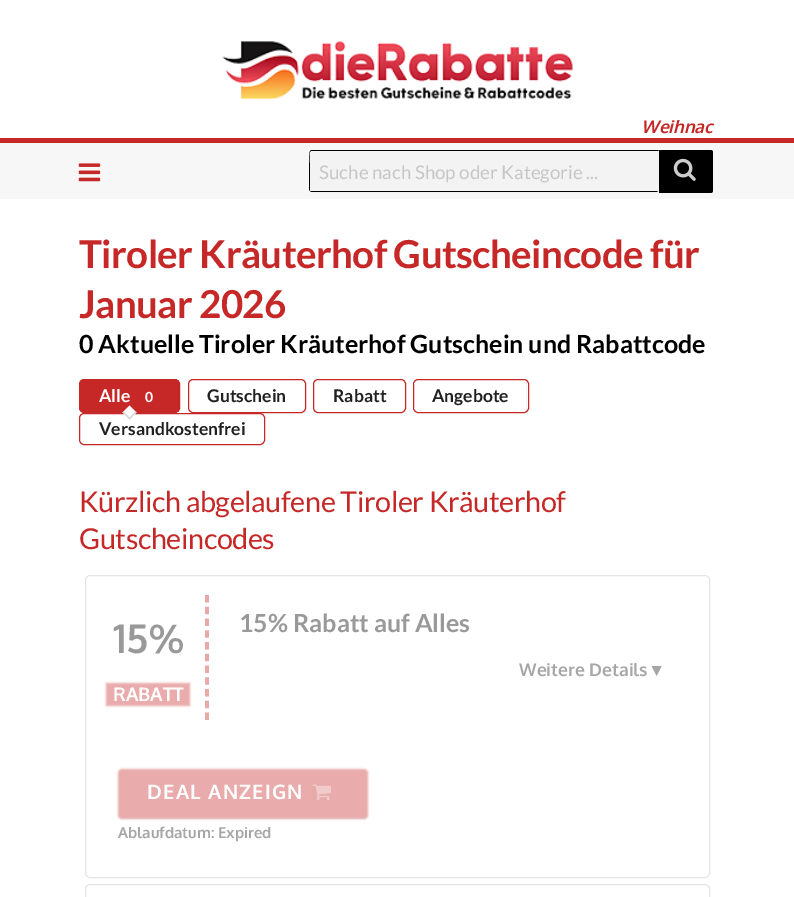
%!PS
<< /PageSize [794 897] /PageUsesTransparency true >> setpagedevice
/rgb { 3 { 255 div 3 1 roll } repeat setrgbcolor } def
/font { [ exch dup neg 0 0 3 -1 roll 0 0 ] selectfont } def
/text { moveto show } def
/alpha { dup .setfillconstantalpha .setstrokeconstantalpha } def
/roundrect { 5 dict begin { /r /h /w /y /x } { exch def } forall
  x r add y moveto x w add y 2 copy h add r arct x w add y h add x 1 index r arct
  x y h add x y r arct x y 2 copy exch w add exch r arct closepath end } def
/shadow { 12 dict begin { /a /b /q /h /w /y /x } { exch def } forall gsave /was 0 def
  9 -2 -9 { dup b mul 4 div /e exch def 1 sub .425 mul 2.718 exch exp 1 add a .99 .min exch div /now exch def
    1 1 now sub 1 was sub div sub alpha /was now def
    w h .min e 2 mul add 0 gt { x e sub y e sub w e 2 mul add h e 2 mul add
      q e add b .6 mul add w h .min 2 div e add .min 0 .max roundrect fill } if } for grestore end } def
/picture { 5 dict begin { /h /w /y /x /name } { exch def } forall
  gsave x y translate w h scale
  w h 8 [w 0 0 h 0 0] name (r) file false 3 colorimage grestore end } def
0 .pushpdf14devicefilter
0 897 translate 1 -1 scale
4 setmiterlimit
255 255 255 rgb
0 0 794 897 rectfill
198 40 40 rgb
0 138 794 5 rectfill
(img_01.rgb) 222 41 351 58 picture
247 247 247 rgb
0 143 794 56 rectfill
(img_02.rgb) 78 163 23 19 picture
243 243 243 rgb
311.5 150 moveto 347.5 0 rlineto 0 43 rlineto -347.5 0 rlineto -1.5 0 -2.5 -1 -2.5 -2.5 rcurveto 0 -38 rlineto 0 -1.5 1 -2.5 2.5 -2.5 rcurveto closepath fill
0 0 0 rgb
311 150 moveto -1 1 rlineto 0 1 rlineto 1 -1 rlineto 347 0 rlineto 1 -1 rlineto closepath fill
658 192 moveto -347 0 rlineto -1 -1 rlineto 347 0 rlineto closepath fill
310 151 moveto -1 1 -1 36 -1 39 rcurveto 1 1 rlineto 0 -1 0 -35 0 -39 rcurveto closepath fill
659 150 moveto 51.5 0 rlineto 1.5 0 2.5 1 2.5 2.5 rcurveto 0 38 rlineto 0 1.5 -1 2.5 -2.5 2.5 rcurveto -51.5 0 rlineto closepath fill
(img_03.rgb) 673 158 23 23 picture
198 40 40 rgb
79.5 379.5 100 33 4.5 roundrect gsave fill grestore
stroke
0.04 alpha
0 0 0 rgb
178 380 1 31 rectfill
1 alpha
198 40 40 rgb
79.5 413.5 185 31 4.5 roundrect stroke
255 255 255 rgb
129.5 405.5 moveto 7 7 rlineto -7 7 rlineto -7 -7 rlineto closepath fill
212 212 213 rgb
136 411.5 moveto 0.5 1 rlineto -7 7 rlineto -1 -1 rlineto closepath fill
123.5 411.5 moveto 7 7 rlineto -1 1 rlineto -7 -7 rlineto closepath fill
198 40 40 rgb
188.5 379.5 117 33 4.5 roundrect stroke
0.04 alpha
0 0 0 rgb
304 380 1 31 rectfill
1 alpha
198 40 40 rgb
313.5 379.5 92 33 4.5 roundrect stroke
0.04 alpha
0 0 0 rgb
404 380 1 31 rectfill
1 alpha
198 40 40 rgb
413.5 379.5 115 33 4.5 roundrect stroke
0.04 alpha
0 0 0 rgb
526 380 1 31 rectfill
1 alpha
229 229 229 rgb
85.5 575.5 624 302 4.5 roundrect stroke
232 169 169 rgb
3.8 setlinewidth
[7.5 4.25] 0 setdash
207 595 moveto 0 125 rlineto stroke
106 683 84 23 0 1 1 shadow
118 769 250 50 4 1 1 shadow
0.1 alpha
153 153 153 rgb
118 814 moveto 0 2 1 4 3 4 rcurveto 243 0 rlineto 2 0 4 -2 4 -4 rcurveto 0 1 rlineto 0 2 -2 4 -4 4 rcurveto -242 0 rlineto -2 0 -4 -2 -4 -4 rcurveto closepath fill
1 alpha
(img_04.rgb) 312 784 19 16 picture
229 229 229 rgb
1 setlinewidth
[] 0 setdash
85.5 884.5 624 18 4.5 roundrect stroke
/Oxygen-BoldItalic 17.5 font
198 40 40 rgb
(Weihnac) 641 133 text
/Lato-Regular 18.75 font
198 198 198 rgb
(Suche nach Shop oder Kategorie ...) 319 179 text
/Lato-Bold 38.5 font
198 40 40 rgb
79 268 moveto -0.6 0 (Tiroler Kräuterhof Gutscheincode für) ashow
79 318 moveto -0.6 0 (Januar 2026) ashow
/Lato-Bold 25 font
0 0 0 rgb
(0 Aktuelle Tiroler Kräuterhof Gutschein und Rabattcode) 79 353 text
/Lato-Bold 17.5 font
255 255 255 rgb
(Alle) 99 402 text
/Lato-Bold 14 font
(0) 145 402 text
/Lato-Bold 17.5 font
33 33 33 rgb
(Gutschein) 207 402 text
(Rabatt) 333 402 text
(Angebote) 432 402 text
(Versandkostenfrei) 99 435 text
/Lato-Regular 28.75 font
198 40 40 rgb
79 512 moveto -0.4 0 (Kürzlich abgelaufene Tiroler Kräuterhof) ashow
79 549 moveto -0.4 0 (Gutscheincodes) ashow
/Oxygen-Bold 40 font
153 153 153 rgb
(15%) 113 653 text
/Oxygen-Bold 18.75 font
255 255 255 rgb
(RABATT) 113 701 text
/Lato-Bold 25 font
153 153 153 rgb
(15% Rabatt auf Alles) 239 632 text
/Oxygen-Bold 17.5 font
166 166 166 rgb
(Weitere Details) 519 676 text
/LiberationSerif-Bold 17.5 font
(▼) 648 676 text
/Oxygen-Bold 20 font
255 255 255 rgb
147 799 moveto 1.25 0 (DEAL ANZEIGN) ashow
/Oxygen-Bold 15 font
166 166 166 rgb
(Ablaufdatum: Expired) 118 838 text
.poppdf14devicefilter showpage
